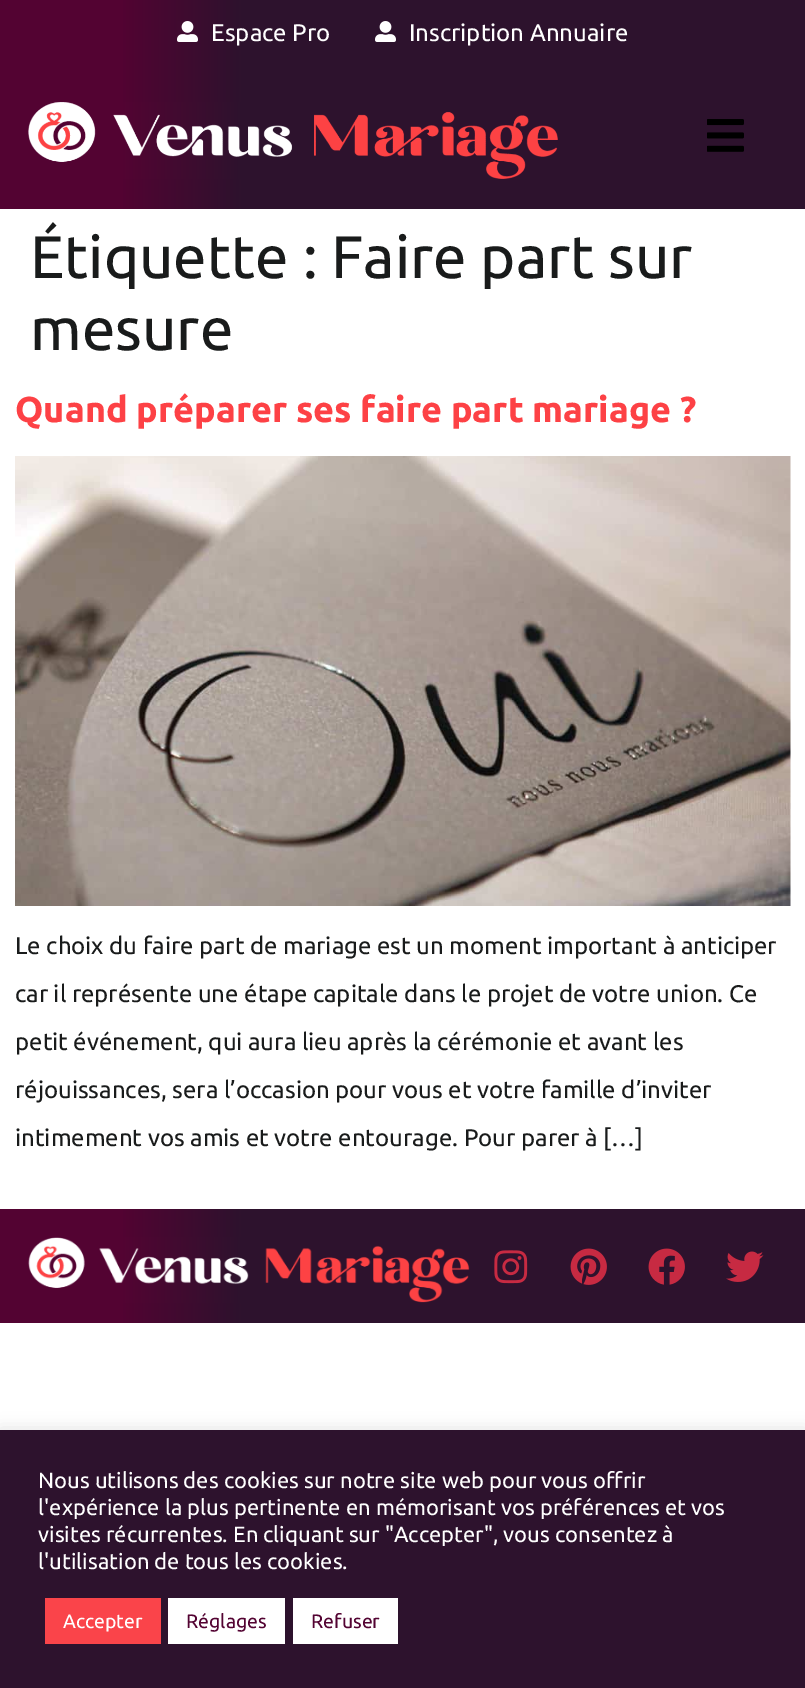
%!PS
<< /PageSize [805 1688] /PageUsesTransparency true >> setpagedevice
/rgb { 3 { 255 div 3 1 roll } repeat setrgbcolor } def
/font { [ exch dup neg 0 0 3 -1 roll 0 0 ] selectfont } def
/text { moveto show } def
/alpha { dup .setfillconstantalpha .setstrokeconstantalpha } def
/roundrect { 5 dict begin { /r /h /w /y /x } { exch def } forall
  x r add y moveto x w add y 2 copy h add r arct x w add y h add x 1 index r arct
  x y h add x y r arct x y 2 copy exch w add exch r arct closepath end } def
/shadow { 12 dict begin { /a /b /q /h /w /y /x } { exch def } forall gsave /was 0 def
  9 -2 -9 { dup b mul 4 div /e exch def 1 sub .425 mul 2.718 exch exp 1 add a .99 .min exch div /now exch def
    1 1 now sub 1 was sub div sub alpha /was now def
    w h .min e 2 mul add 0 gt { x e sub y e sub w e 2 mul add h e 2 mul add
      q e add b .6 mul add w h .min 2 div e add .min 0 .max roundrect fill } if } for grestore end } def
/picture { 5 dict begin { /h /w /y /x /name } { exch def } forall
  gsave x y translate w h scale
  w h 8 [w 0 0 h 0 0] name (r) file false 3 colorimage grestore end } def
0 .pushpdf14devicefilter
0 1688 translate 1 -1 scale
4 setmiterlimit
255 255 255 rgb
0 0 805 1688 rectfill
gsave 0 0 moveto 805 0 rlineto 0 209 rlineto -805 0 rlineto closepath clip newpath
<< /ShadingType 2 /ColorSpace /DeviceRGB /Coords [0 104 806 104] /Extend [true true] /Function << /FunctionType 3 /Domain [0 1] /Functions [<< /FunctionType 2 /Domain [0 1] /C0 [0.325 0.012 0.196] /C1 [0.325 0.012 0.196] /N 1 >> << /FunctionType 2 /Domain [0 1] /C0 [0.325 0.012 0.196] /C1 [0.176 0.071 0.176] /N 1 >> << /FunctionType 2 /Domain [0 1] /C0 [0.176 0.071 0.176] /C1 [0.176 0.071 0.176] /N 1 >>] /Bounds [0.15 0.3] /Encode [0 1 0 1 0 1] >> >> shfill grestore
(img_01.rgb) 177 21 21 21 picture
(img_02.rgb) 375 21 21 21 picture
(img_03.rgb) 28 102 530 77 picture
(img_04.rgb) 707 119 37 33 picture
(img_05.rgb) 15 456 776 450 picture
gsave 0 1209 moveto 805 0 rlineto 0 114 rlineto -805 0 rlineto closepath clip newpath
<< /ShadingType 2 /ColorSpace /DeviceRGB /Coords [0 1266 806 1266] /Extend [true true] /Function << /FunctionType 3 /Domain [0 1] /Functions [<< /FunctionType 2 /Domain [0 1] /C0 [0.325 0.012 0.196] /C1 [0.325 0.012 0.196] /N 1 >> << /FunctionType 2 /Domain [0 1] /C0 [0.325 0.012 0.196] /C1 [0.176 0.071 0.176] /N 1 >> << /FunctionType 2 /Domain [0 1] /C0 [0.176 0.071 0.176] /C1 [0.176 0.071 0.176] /N 1 >>] /Bounds [0.15 0.3] /Encode [0 1 0 1 0 1] >> >> shfill grestore
(img_06.rgb) 28 1237 442 66 picture
(img_07.rgb) 494 1250 34 34 picture
(img_08.rgb) 570 1248 37 37 picture
(img_09.rgb) 648 1248 37 37 picture
(img_10.rgb) 726 1251 38 31 picture
172 171 171 rgb
0 1428 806 260 0 7.5 0.3 shadow
45 18 45 rgb
0 1430 805 258 rectfill
250 68 74 rgb
45 1598 116 46 rectfill
255 255 255 rgb
168 1598 117 46 rectfill
293 1598 105 46 rectfill
/Ubuntu-Regular 24 font
(Espace Pro) 211 41 text
(Inscription Annuaire) 409 41 text
/Ubuntu-Regular 60 font
25 27 27 rgb
(Étiquette : Faire part sur) 30 278 text
(mesure) 30 350 text
/Ubuntu-Bold 36 font
253 65 69 rgb
(Quand préparer ses faire part mariage ?) 15 422 text
/Ubuntu-Regular 24 font
25 27 27 rgb
(Le choix du faire part de mariage est un moment important à anticiper) 15 954 text
(car il représente une étape capitale dans le projet de votre union. Ce) 15 1002 text
(petit événement, qui aura lieu après la cérémonie et avant les) 15 1050 text
(réjouissances, sera l’occasion pour vous et votre famille d’inviter) 15 1098 text
(intimement vos amis et votre entourage. Pour parer à […]) 15 1146 text
/Ubuntu-Regular 22 font
255 255 255 rgb
(Nous utilisons des cookies sur notre site web pour vous offrir) 38 1488 text
(l'expérience la plus pertinente en mémorisant vos préférences et vos) 38 1515 text
(visites récurrentes. En cliquant sur "Accepter", vous consentez à) 38 1542 text
(l'utilisation de tous les cookies.) 38 1569 text
/Ubuntu-Regular 19.5 font
(Accepter) 63 1628 text
83 3 50 rgb
(Réglages) 186 1628 text
(Refuser) 311 1628 text
.poppdf14devicefilter showpage
